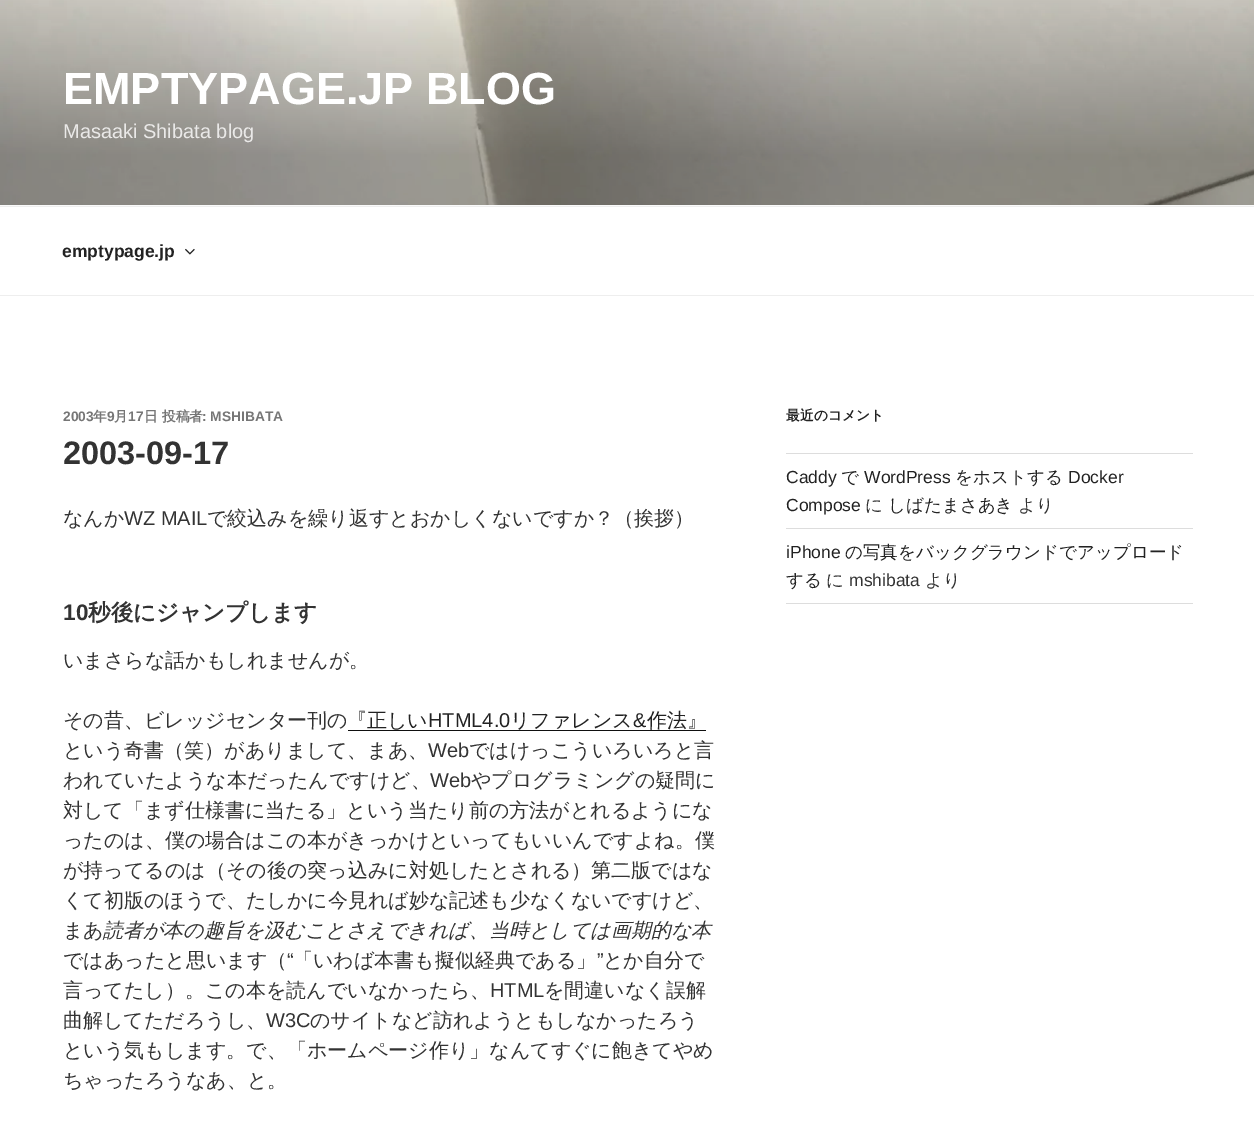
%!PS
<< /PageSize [1254 1127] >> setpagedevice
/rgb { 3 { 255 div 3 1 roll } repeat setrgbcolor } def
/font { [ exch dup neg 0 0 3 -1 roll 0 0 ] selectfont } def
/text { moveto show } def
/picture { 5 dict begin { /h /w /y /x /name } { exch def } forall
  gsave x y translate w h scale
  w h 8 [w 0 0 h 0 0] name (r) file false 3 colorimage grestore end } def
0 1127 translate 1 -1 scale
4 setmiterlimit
255 255 255 rgb
0 0 1254 1127 rectfill
250 250 250 rgb
0 205 1254 1 rectfill
(img_01.rgb) 0 0 1254 205 picture
238 238 238 rgb
0 206 1254 1 rectfill
0 295 1254 1 rectfill
(img_02.rgb) 185 248 10 7 picture
15 15 15 rgb
348 730 358 1 rectfill
221 221 221 rgb
786 453 407 1 rectfill
786 528 407 1 rectfill
786 603 407 1 rectfill
/LiberationSans-Bold 45 font
255 255 255 rgb
(EMPTYPAGE.JP BLOG) 63 104 text
/LiberationSans-Regular 20 font
234 233 232 rgb
(Masaaki Shibata blog) 63 138 text
/LiberationSans-Bold 17.5 font
34 34 34 rgb
(emptypage.jp) 62 257 text
/LiberationSans-Bold 13.75 font
118 118 118 rgb
(2003) 63 421 text
/WenQuanYiZenHei-Bold 13.75 font
(年) 93 421 text
/LiberationSans-Bold 13.75 font
(9) 107 421 text
/WenQuanYiZenHei-Bold 13.75 font
(月) 114 421 text
/LiberationSans-Bold 13.75 font
(17) 128 421 text
/WenQuanYiZenHei-Bold 13.75 font
(日 投稿者) 144 421 text
/LiberationSans-Bold 13.75 font
(: MSHIBATA) 202 421 text
/LiberationSans-Bold 32.5 font
51 51 51 rgb
(2003-09-17) 63 464 text
/WenQuanYiZenHei-Medium 20 font
(なんか) 63 525 text
/LiberationSans-Regular 20 font
(WZ MAIL) 124 525 text
/WenQuanYiZenHei-Medium 20 font
(で絞込みを繰り返すとおかしくないですか？（挨拶）) 207 525 text
/LiberationSans-Bold 22.5 font
(10) 63 620 text
/WenQuanYiZenHei-Bold 22.5 font
(秒後にジャンプします) 88 620 text
/WenQuanYiZenHei-Medium 20 font
(いまさらな話かもしれませんが。) 63 667 text
(その昔、ビレッジセンター刊の) 63 727 text
34 34 34 rgb
(『正しい) 347 727 text
/LiberationSans-Regular 20 font
(HTML4.0) 428 727 text
/WenQuanYiZenHei-Medium 20 font
(リファレンス) 510 727 text
/LiberationSans-Regular 20 font
(&) 633 727 text
/WenQuanYiZenHei-Medium 20 font
(作法』) 647 727 text
51 51 51 rgb
(という奇書（笑）がありまして、まあ、) 63 757 text
/LiberationSans-Regular 20 font
(Web) 428 757 text
/WenQuanYiZenHei-Medium 20 font
(ではけっこういろいろと言) 469 757 text
(われていたような本だったんですけど、) 63 787 text
/LiberationSans-Regular 20 font
(Web) 430 787 text
/WenQuanYiZenHei-Medium 20 font
(やプログラミングの疑問に) 471 787 text
(対して「まず仕様書に当たる」という当たり前の方法がとれるようにな) 63 817 text
(ったのは、僕の場合はこの本がきっかけといってもいいんですよね。僕) 63 847 text
(が持ってるのは（その後の突っ込みに対処したとされる）第二版ではな) 63 877 text
(くて初版のほうで、たしかに今見れば妙な記述も少なくないですけど、) 63 907 text
(まあ) 63 937 text
/WenQuanYiZenHei-MediumItalic 20 font
(読者が本の趣旨を汲むことさえできれば、当時としては画期的な本) 103 937 text
/WenQuanYiZenHei-Medium 20 font
(ではあったと思います（) 63 967 text
/LiberationSans-Regular 20 font
(“) 287 967 text
/WenQuanYiZenHei-Medium 20 font
(「いわば本書も擬似経典である」) 293 967 text
/LiberationSans-Regular 20 font
(”) 597 967 text
/WenQuanYiZenHei-Medium 20 font
(とか自分で) 603 967 text
(言ってたし）。この本を読んでいなかったら、) 63 997 text
/LiberationSans-Regular 20 font
(HTML) 490 997 text
/WenQuanYiZenHei-Medium 20 font
(を間違いなく誤解) 544 997 text
(曲解してただろうし、) 63 1027 text
/LiberationSans-Regular 20 font
(W3C) 266 1027 text
/WenQuanYiZenHei-Medium 20 font
(のサイトなど訪れようともしなかったろう) 310 1027 text
(という気もします。で、「ホームページ作り」なんてすぐに飽きてやめ) 63 1057 text
(ちゃったろうなあ、と。) 63 1087 text
/WenQuanYiZenHei-Bold 13.75 font
34 34 34 rgb
(最近のコメント) 786 420 text
/LiberationSans-Regular 17.5 font
(Caddy) 786 483 text
/WenQuanYiZenHei-Medium 17.5 font
(で) 841 483 text
/LiberationSans-Regular 17.5 font
(WordPress) 864 483 text
/WenQuanYiZenHei-Medium 17.5 font
(をホストする) 955 483 text
/LiberationSans-Regular 17.5 font
(Docker) 1068 483 text
(Compose) 786 511 text
/WenQuanYiZenHei-Medium 17.5 font
51 51 51 rgb
(に) 865 511 text
34 34 34 rgb
(しばたまさあき) 888 511 text
51 51 51 rgb
(より) 1018 511 text
/LiberationSans-Regular 17.5 font
34 34 34 rgb
(iPhone) 786 558 text
/WenQuanYiZenHei-Medium 17.5 font
(の写真をバックグラウンドでアップロード) 845 558 text
(する) 786 586 text
51 51 51 rgb
(に) 826 586 text
/LiberationSans-Regular 17.5 font
(mshibata) 849 586 text
/WenQuanYiZenHei-Medium 17.5 font
(より) 925 586 text
showpage
